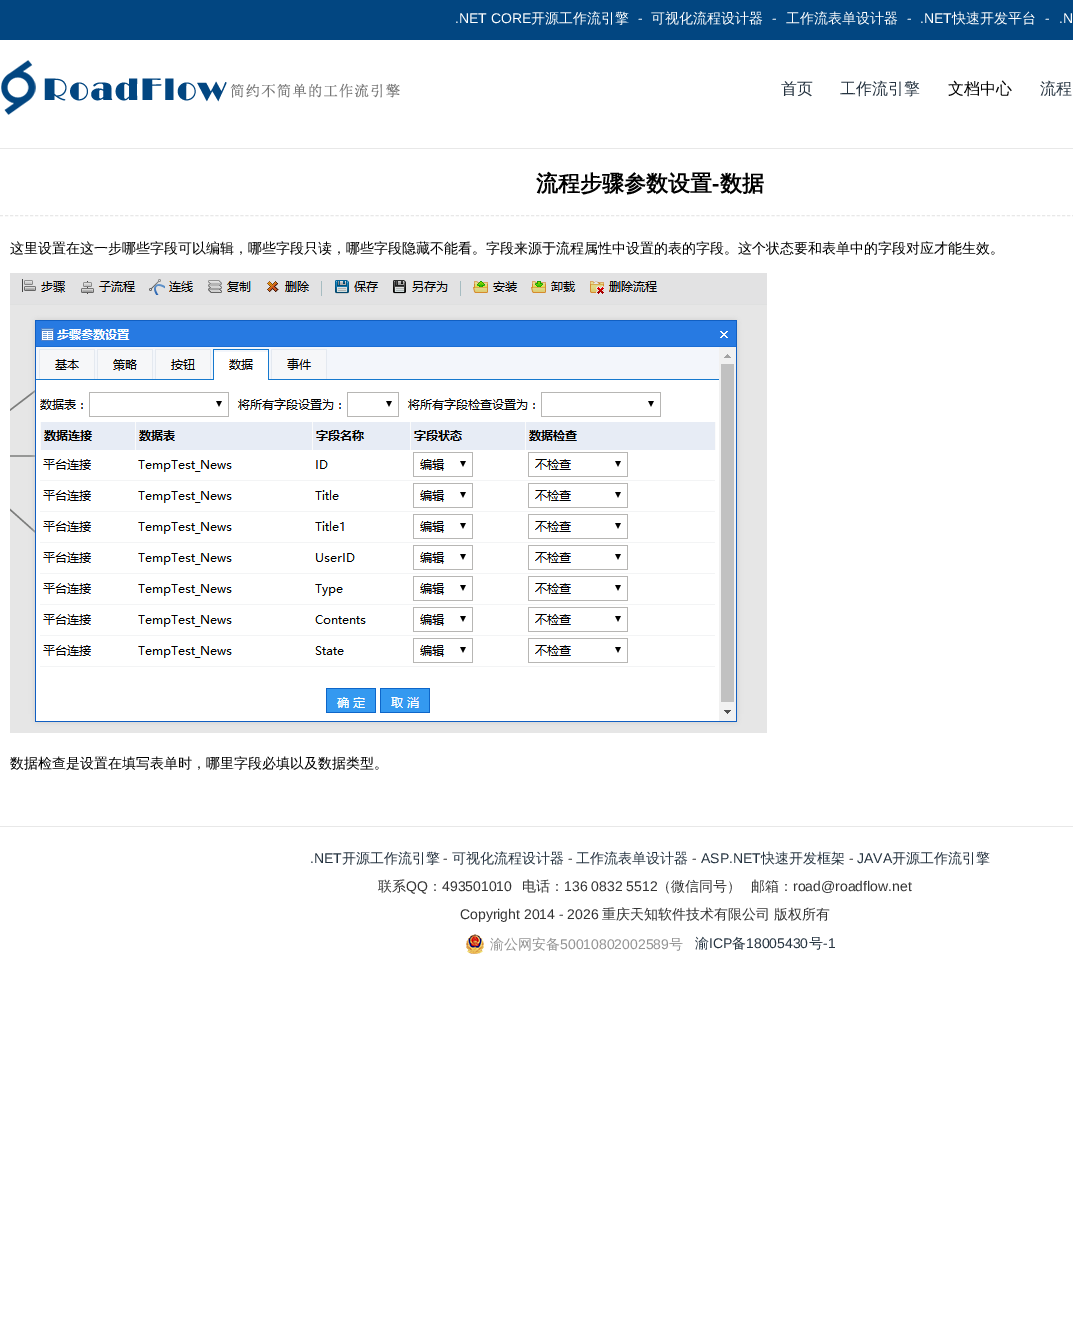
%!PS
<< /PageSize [1073 1338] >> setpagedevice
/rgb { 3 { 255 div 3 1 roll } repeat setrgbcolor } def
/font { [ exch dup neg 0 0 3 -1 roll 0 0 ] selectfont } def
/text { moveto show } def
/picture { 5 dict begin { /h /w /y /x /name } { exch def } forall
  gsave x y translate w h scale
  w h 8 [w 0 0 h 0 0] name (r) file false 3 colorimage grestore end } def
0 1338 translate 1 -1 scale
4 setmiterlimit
255 255 255 rgb
0 0 1073 1338 rectfill
2 70 129 rgb
0 0 1073 40 rectfill
(img_01.rgb) 1 60 399 55 picture
232 232 232 rgb
0 148 1073 1 rectfill
[3 2.01] 0 setdash
0 215.5 moveto 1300 0 rlineto stroke
(img_02.rgb) 10 273 757 460 picture
0 826 1073 1 rectfill
(img_03.rgb) 466 934 18 20 picture
/LiberationSans-Regular 14 font
255 255 255 rgb
(.NET CORE) 455 23 text
/WenQuanYiZenHei-Medium 14 font
(开源工作流引擎) 531 23 text
/LiberationSans-Regular 14 font
(-) 638 23 text
/WenQuanYiZenHei-Medium 14 font
(可视化流程设计器) 651 23 text
/LiberationSans-Regular 14 font
(-) 772 23 text
/WenQuanYiZenHei-Medium 14 font
(工作流表单设计器) 786 23 text
/LiberationSans-Regular 14 font
(-) 907 23 text
(.NET) 920 23 text
/WenQuanYiZenHei-Medium 14 font
(快速开发平台) 952 23 text
/LiberationSans-Regular 14 font
(-) 1045 23 text
(.N) 1059 23 text
/WenQuanYiZenHei-Medium 16 font
37 51 64 rgb
(首页) 781 94 text
(工作流引擎) 840 94 text
0 0 0 rgb
(文档中心) 948 94 text
37 51 64 rgb
(流程) 1040 94 text
/WenQuanYiZenHei-Bold 22 font
0 0 0 rgb
(流程步骤参数设置) 536 191 text
/LiberationSans-Bold 22 font
(-) 712 191 text
/WenQuanYiZenHei-Bold 22 font
(数据) 720 191 text
/WenQuanYiZenHei-Medium 14 font
(这里设置在这一步哪些字段可以编辑，哪些字段只读，哪些字段隐藏不能看。字段来源于流程属性中设置的表的字段。这个状态要和表单中的字段对应才能生效。) 10 253 text
(数据检查是设置在填写表单时，哪里字段必填以及数据类型。) 10 768 text
/LiberationSans-Regular 14 font
37 51 64 rgb
(.NET) 310 863 text
/WenQuanYiZenHei-Medium 14 font
(开源工作流引擎) 342 863 text
/LiberationSans-Regular 14 font
51 51 51 rgb
(-) 443 863 text
/WenQuanYiZenHei-Medium 14 font
37 51 64 rgb
(可视化流程设计器) 452 863 text
/LiberationSans-Regular 14 font
51 51 51 rgb
(-) 568 863 text
/WenQuanYiZenHei-Medium 14 font
37 51 64 rgb
(工作流表单设计器) 576 863 text
/LiberationSans-Regular 14 font
51 51 51 rgb
(-) 692 863 text
37 51 64 rgb
(ASP.NET) 701 863 text
/WenQuanYiZenHei-Medium 14 font
(快速开发框架) 761 863 text
/LiberationSans-Regular 14 font
51 51 51 rgb
(-) 849 863 text
37 51 64 rgb
(JAVA) 857 863 text
/WenQuanYiZenHei-Medium 14 font
(开源工作流引擎) 892 863 text
51 51 51 rgb
(联系) 378 891 text
/LiberationSans-Regular 14 font
(QQ) 406 891 text
/WenQuanYiZenHei-Medium 14 font
(：) 428 891 text
/LiberationSans-Regular 14 font
(493501010) 442 891 text
/WenQuanYiZenHei-Medium 14 font
(电话：) 522 891 text
/LiberationSans-Regular 14 font
(136 0832 5512) 564 891 text
/WenQuanYiZenHei-Medium 14 font
(（微信同号）) 657 891 text
(邮箱：) 751 891 text
/LiberationSans-Regular 14 font
(road@roadflow.net) 793 891 text
(Copyright 2014 - 2026) 460 919 text
/WenQuanYiZenHei-Medium 14 font
(重庆天知软件技术有限公司) 602 919 text
(版权所有) 774 919 text
147 147 147 rgb
(渝公网安备) 490 949 text
/LiberationSans-Regular 14 font
(50010802002589) 560 949 text
/WenQuanYiZenHei-Medium 14 font
(号) 669 949 text
37 51 64 rgb
(渝) 695 948 text
/LiberationSans-Regular 14 font
(ICP) 709 948 text
/WenQuanYiZenHei-Medium 14 font
(备) 732 948 text
/LiberationSans-Regular 14 font
(18005430) 746 948 text
/WenQuanYiZenHei-Medium 14 font
(号) 809 948 text
/LiberationSans-Regular 14 font
(-1) 823 948 text
showpage
